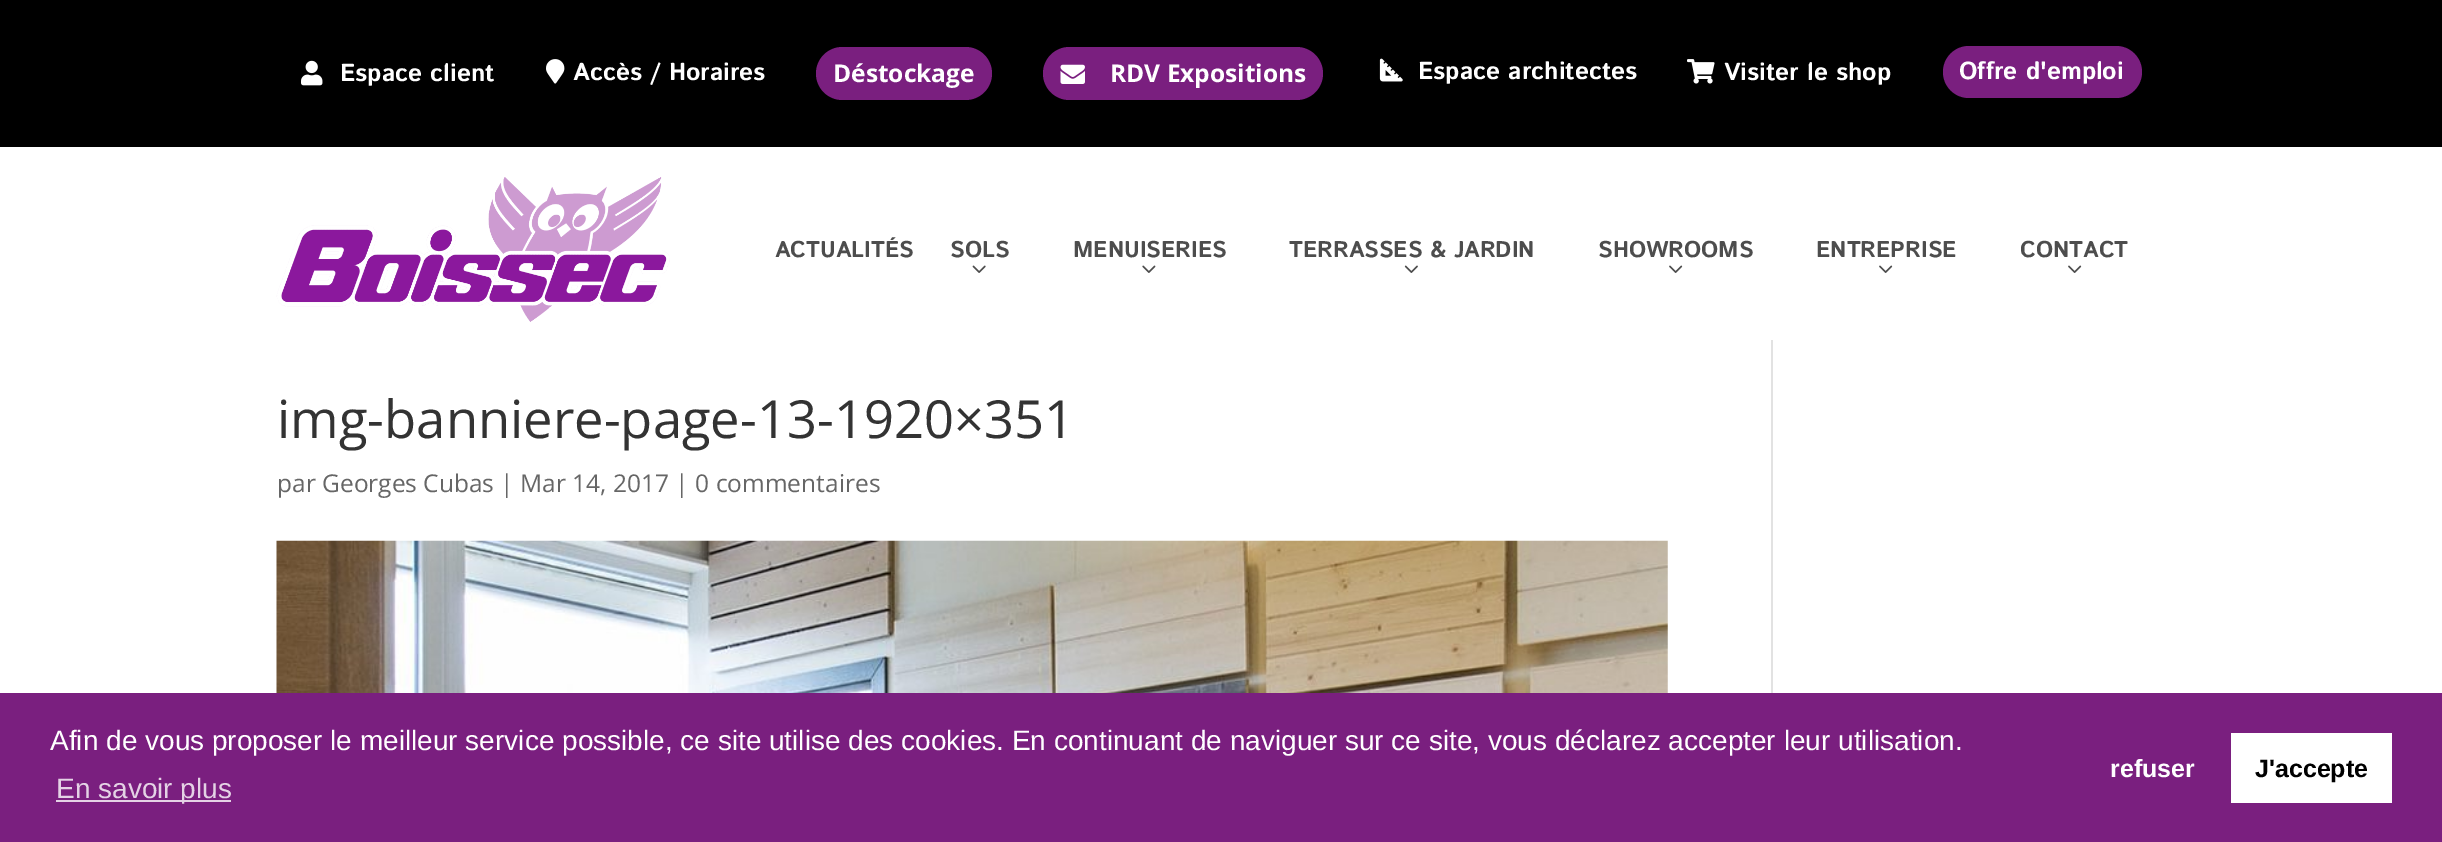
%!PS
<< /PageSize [2442 842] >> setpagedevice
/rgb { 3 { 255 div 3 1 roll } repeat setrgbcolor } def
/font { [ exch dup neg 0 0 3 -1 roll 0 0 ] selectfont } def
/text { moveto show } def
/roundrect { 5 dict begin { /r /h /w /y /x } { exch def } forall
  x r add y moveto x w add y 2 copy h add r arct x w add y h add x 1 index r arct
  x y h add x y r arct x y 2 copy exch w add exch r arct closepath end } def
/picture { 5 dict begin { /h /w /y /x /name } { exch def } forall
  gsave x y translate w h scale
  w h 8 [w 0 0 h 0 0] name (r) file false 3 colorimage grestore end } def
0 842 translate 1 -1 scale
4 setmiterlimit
255 255 255 rgb
0 0 2442 842 rectfill
0 0 0 rgb
0 0 2442 147 rectfill
(img_01.rgb) 301 60 22 26 picture
(img_02.rgb) 546 59 19 25 picture
122 31 127 rgb
816 47 176 53 26.5 roundrect fill
1043 47 280 53 26.5 roundrect fill
(img_03.rgb) 1060 64 25 20 picture
(img_04.rgb) 1379 58 24 24 picture
(img_05.rgb) 1687 59 28 25 picture
1943 46 199 52 26 roundrect fill
(img_06.rgb) 276 177 394 145 picture
(img_07.rgb) 972 265 14 8 picture
(img_08.rgb) 1142 265 14 8 picture
(img_09.rgb) 1404 265 14 8 picture
(img_10.rgb) 1669 265 14 8 picture
(img_10.rgb) 1879 265 14 8 picture
(img_10.rgb) 2068 265 14 8 picture
(img_11.rgb) 276 540 1392 153 picture
226 226 226 rgb
1771 340 2 353 rectfill
122 31 127 rgb
0 693 2442 149 rectfill
228 210 229 rgb
56 800 175 2 rectfill
255 255 255 rgb
2231 733 161 70 rectfill
/IstokWeb-Bold 24.5 font
(Espace client) 340 81 text
(Accès / Horaires) 573 80 text
/OpenSans-Bold 24.5 font
(Déstockage) 833 82 text
(RDV Expositions) 1110 82 text
/IstokWeb-Bold 24.5 font
(Espace architectes) 1418 79 text
(Visiter le shop) 1724 80 text
(Offre d'emploi) 1959 79 text
/IstokWeb-Bold 22.75 font
77 77 77 rgb
(ACTUALITÉS) 775 257 text
(SOLS) 950 257 text
(MENUISERIES) 1073 257 text
(TERRASSES & JARDIN) 1289 257 text
(SHOWROOMS) 1598 257 text
(ENTREPRISE) 1816 257 text
(CONTACT) 2020 257 text
/OpenSans-Regular 52.5 font
51 51 51 rgb
(img-banniere-page-13-1920×351) 277 438 text
/OpenSans-Regular 24.5 font
102 102 102 rgb
(par Georges Cubas | Mar 14, 2017 | 0 commentaires) 277 492 text
/LiberationSans-Regular 28 font
255 255 255 rgb
(Afin de vous proposer le meilleur service possible, ce site utilise des cookies. En continuant de naviguer sur ce site, vous déclarez accepter leur utilisation.) 50 750 text
228 210 229 rgb
(En savoir plus) 56 798 text
/LiberationSans-Bold 25 font
255 255 255 rgb
(refuser) 2110 777 text
0 0 0 rgb
(J'accepte) 2255 777 text
showpage
